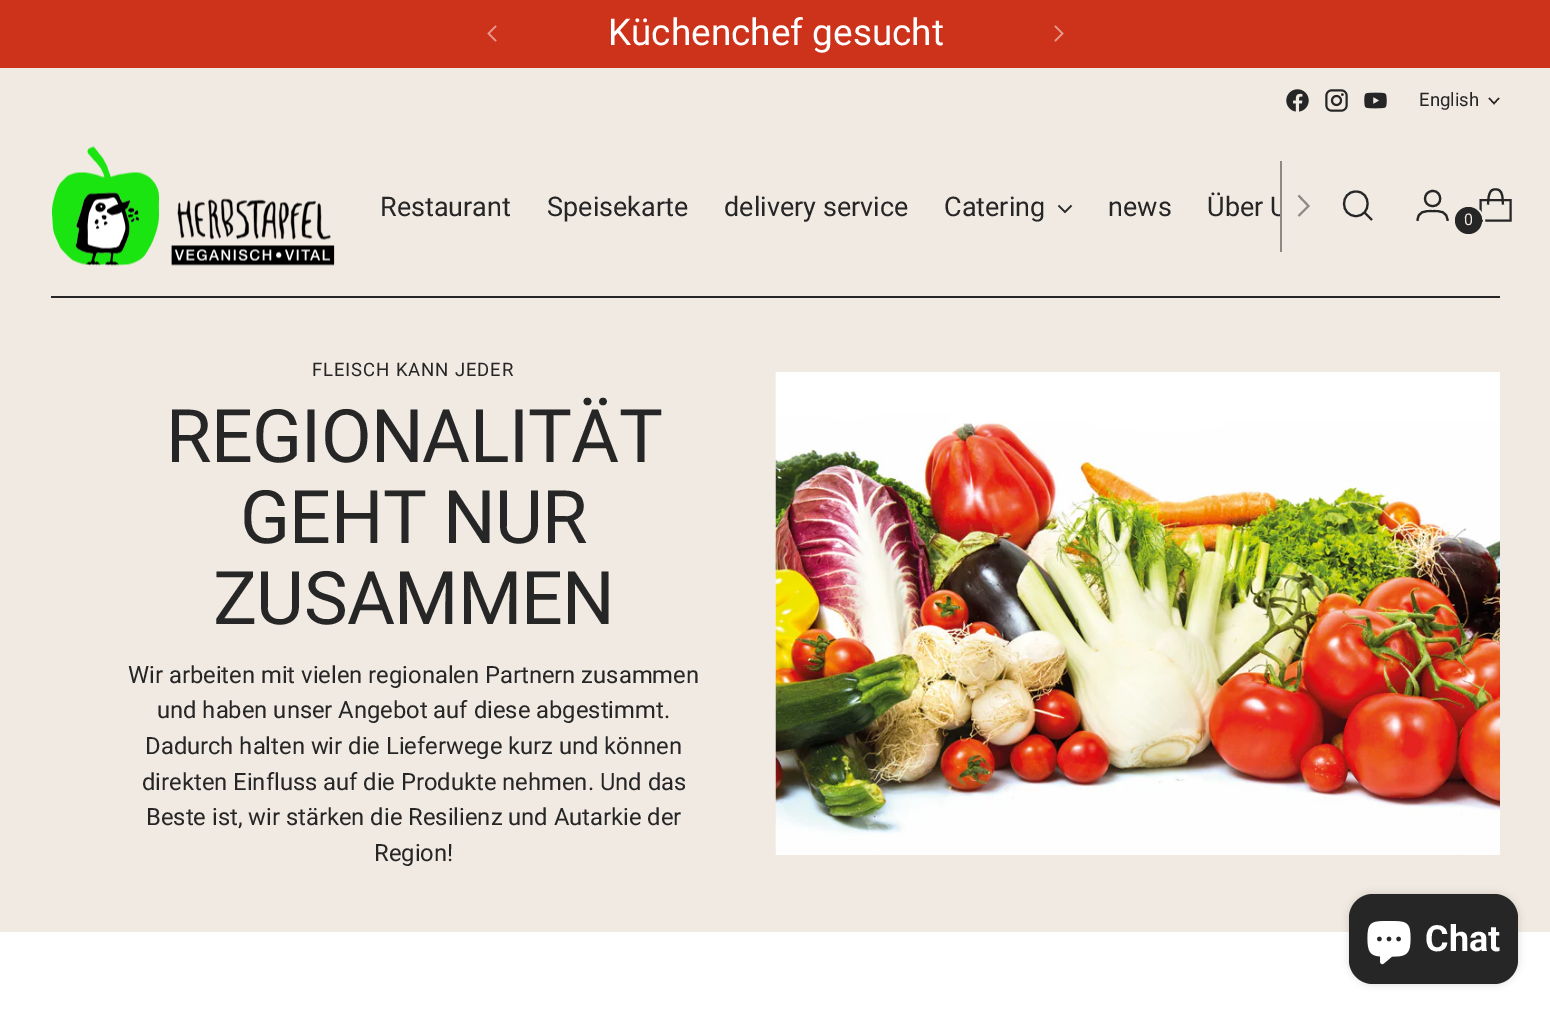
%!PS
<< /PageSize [1550 1015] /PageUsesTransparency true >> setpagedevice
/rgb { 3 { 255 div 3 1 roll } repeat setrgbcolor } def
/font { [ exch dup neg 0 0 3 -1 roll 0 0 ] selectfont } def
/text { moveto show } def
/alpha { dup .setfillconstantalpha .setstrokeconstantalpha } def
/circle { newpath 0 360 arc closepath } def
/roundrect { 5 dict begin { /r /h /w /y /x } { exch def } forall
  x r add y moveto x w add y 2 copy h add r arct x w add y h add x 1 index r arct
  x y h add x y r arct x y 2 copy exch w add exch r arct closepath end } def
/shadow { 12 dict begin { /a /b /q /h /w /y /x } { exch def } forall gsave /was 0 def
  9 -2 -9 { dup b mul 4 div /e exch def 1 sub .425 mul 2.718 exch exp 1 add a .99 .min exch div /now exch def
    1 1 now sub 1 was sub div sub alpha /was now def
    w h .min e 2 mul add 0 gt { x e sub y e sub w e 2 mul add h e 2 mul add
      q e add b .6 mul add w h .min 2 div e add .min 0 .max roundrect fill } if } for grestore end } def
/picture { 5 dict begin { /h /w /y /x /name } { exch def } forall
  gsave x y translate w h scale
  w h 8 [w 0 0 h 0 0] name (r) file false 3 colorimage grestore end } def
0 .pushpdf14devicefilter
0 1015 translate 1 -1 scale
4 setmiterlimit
255 255 255 rgb
0 0 1550 1015 rectfill
205 50 27 rgb
0 0 1550 68 rectfill
230 153 141 rgb
1.5 setlinewidth
496 26 moveto -7.5 7.5 rlineto 7.5 7.5 rlineto stroke
1055 41 moveto 7.5 -7.5 rlineto -7.5 -7.5 rlineto stroke
241 234 226 rgb
0 68 1550 864 rectfill
38 38 38 rgb
51 296 1449 2 rectfill
(img_01.rgb) 1286 89 23 23 picture
(img_02.rgb) 1325 89 23 23 picture
(img_03.rgb) 1364 92 23 17 picture
1.4 setlinewidth
1489 98 moveto 5 5.5 rlineto 5 -5.5 rlineto stroke
(img_04.rgb) 51 146 284 120 picture
1.7 setlinewidth
1058.5 205.5 moveto 6.5 6.5 rlineto 6.5 -6.5 rlineto stroke
140 136 132 rgb
1280 161 2 91 rectfill
2 setlinewidth
1298.5 216 moveto 10 -10 rlineto -10 -10.5 rlineto stroke
38 38 38 rgb
2.1 setlinewidth
1 setlinecap
1356 216 moveto 15.5 0 15.5 -24.5 0 -24.5 rcurveto -16 0 -16 24.5 0 24.5 rcurveto closepath stroke
0 setlinecap
1364.5 212.5 moveto 7.5 7.5 rlineto stroke
1432.5 206 moveto 10.5 0.5 10 -15.5 0 -15 rcurveto -10 0.5 -10 15 0 15 rcurveto closepath 1417.5 221 moveto 0 -10 7.5 -10 15 -10 rcurveto 7.5 0 15 0 15 10 rcurveto stroke
2 setlinejoin
1503 204.5 moveto -0.5 -3.5 0 -7.5 -1.5 -11 rcurveto -0.5 -2 -2.5 -4 -4.5 -4 rcurveto -9 -2 -8.5 9.5 -9 15 rcurveto stroke
0 setlinejoin
1510.5 220.5 moveto 0 -20.5 rlineto -30 0 rlineto 0 20.5 rlineto closepath stroke
241 234 226 rgb
2 setlinewidth
1469.5 221.5 14.5 circle stroke
38 38 38 rgb
1468.5 220.5 13.5 circle fill
(img_05.rgb) 775 372 725 483 picture
0 0 0 rgb
1349 894 169 90 24 4 0.15 shadow
38 38 38 rgb
1349 894 169 90 24 roundrect fill
(img_06.rgb) 1367 921 44 44 picture
/Roboto-Regular 36.9 font
255 255 255 rgb
(Küchenchef gesucht) 608 45 text
/Roboto-Regular 18.5 font
38 38 38 rgb
(English) 1419 106 text
/Roboto-Regular 27 font
(Restaurant) 380 216 text
(Speisekarte) 547 216 text
(delivery service) 724 216 text
(Catering) 944 216 text
(news) 1108 216 text
gsave
378 116 902 181 rectclip
(Über U) 1207 216 text
grestore
/Roboto-Regular 16 font
241 234 226 rgb
(0) 1464 225 text
/Roboto-Regular 18.5 font
38 38 38 rgb
312 376 moveto 0.9 0 (FLEISCH KANN JEDER) ashow
/Roboto-Regular 73.75 font
166 462 moveto -0.75 0 (REGIONALITÄT) ashow
240 543 moveto -0.75 0 (GEHT NUR) ashow
213 624 moveto -0.75 0 (ZUSAMMEN) ashow
/Roboto-Regular 23.75 font
(Wir arbeiten mit vielen regionalen Partnern zusammen) 128 683 text
(und haben unser Angebot auf diese abgestimmt.) 157 718 text
(Dadurch halten wir die Lieferwege kurz und können) 145 754 text
(direkten Einfluss auf die Produkte nehmen. Und das) 142 790 text
(Beste ist, wir stärken die Resilienz und Autarkie der) 146 825 text
(Region!) 374 861 text
/Roboto-Bold 36 font
255 255 255 rgb
(Chat) 1425 951 text
.poppdf14devicefilter showpage
